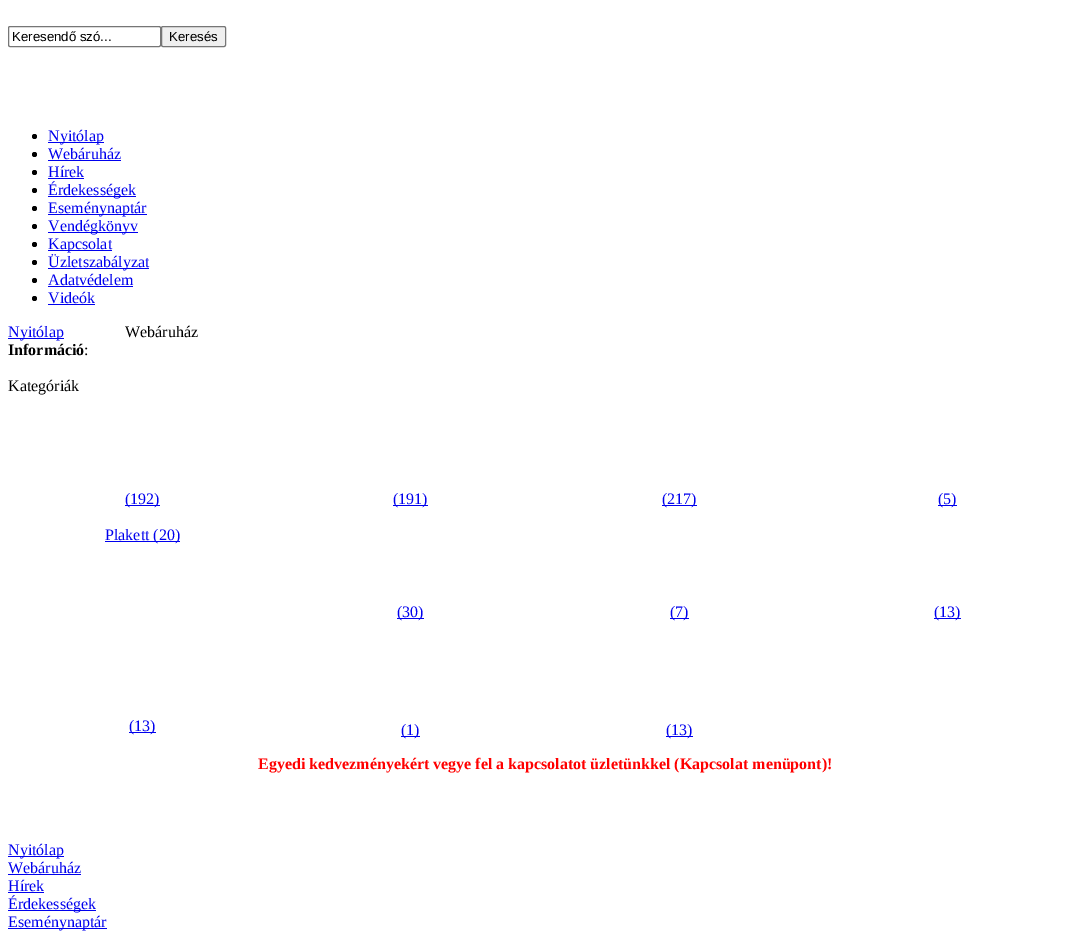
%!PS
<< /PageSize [1090 941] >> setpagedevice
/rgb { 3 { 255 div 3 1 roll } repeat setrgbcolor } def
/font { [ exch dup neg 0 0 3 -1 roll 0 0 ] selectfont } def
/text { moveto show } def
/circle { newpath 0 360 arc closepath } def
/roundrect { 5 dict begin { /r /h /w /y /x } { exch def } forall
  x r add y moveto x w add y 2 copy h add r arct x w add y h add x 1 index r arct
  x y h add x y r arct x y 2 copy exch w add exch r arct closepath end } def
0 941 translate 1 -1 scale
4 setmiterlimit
255 255 255 rgb
0 0 1090 941 rectfill
118 118 118 rgb
8.5 26.5 152 20 1.5 roundrect stroke
239 239 239 rgb
161.5 26.5 64 20 1.5 roundrect gsave fill grestore
118 118 118 rgb
stroke
0 0 0 rgb
34.5 136.5 2.5 circle fill
0 0 238 rgb
48 142 56 1 rectfill
0 0 0 rgb
34.5 154.5 2.5 circle fill
0 0 238 rgb
48 160 73 1 rectfill
0 0 0 rgb
34.5 172.5 2.5 circle fill
0 0 238 rgb
48 178 36 1 rectfill
0 0 0 rgb
34.5 190.5 2.5 circle fill
0 0 238 rgb
48 196 88 1 rectfill
0 0 0 rgb
34.5 208.5 2.5 circle fill
0 0 238 rgb
48 214 99 1 rectfill
0 0 0 rgb
34.5 226.5 2.5 circle fill
0 0 238 rgb
48 232 90 1 rectfill
0 0 0 rgb
34.5 244.5 2.5 circle fill
0 0 238 rgb
48 250 64 1 rectfill
0 0 0 rgb
34.5 262.5 2.5 circle fill
0 0 238 rgb
48 268 101 1 rectfill
0 0 0 rgb
34.5 280.5 2.5 circle fill
0 0 238 rgb
48 286 85 1 rectfill
0 0 0 rgb
34.5 298.5 2.5 circle fill
0 0 238 rgb
48 304 47 1 rectfill
8 338 56 1 rectfill
125 505 35 1 rectfill
393 505 35 1 rectfill
662 505 35 1 rectfill
938 505 19 1 rectfill
105 541 75 1 rectfill
397 618 27 1 rectfill
670 618 19 1 rectfill
934 618 27 1 rectfill
129 732 27 1 rectfill
401 736 19 1 rectfill
666 736 27 1 rectfill
8 856 56 1 rectfill
8 874 73 1 rectfill
8 892 36 1 rectfill
8 910 88 1 rectfill
8 928 99 1 rectfill
/LiberationSans-Regular 13.25 font
0 0 0 rgb
(Keresendő szó...) 12 41 text
(Keresés) 169 41 text
/LiberationSerif-Regular 16 font
0 0 238 rgb
(Nyitólap) 48 141 text
(Webáruház) 48 159 text
(Hírek) 48 177 text
(Érdekességek) 48 195 text
(Eseménynaptár) 48 213 text
(Vendégkönyv) 48 231 text
(Kapcsolat) 48 249 text
(Üzletszabályzat) 48 267 text
(Adatvédelem) 48 285 text
(Videók) 48 303 text
(Nyitólap) 8 337 text
0 0 0 rgb
(Webáruház) 125 337 text
/LiberationSerif-Bold 16 font
(Információ) 8 355 text
/LiberationSerif-Regular 16 font
(:) 84 355 text
(Kategóriák) 8 391 text
0 0 238 rgb
(\(192\)) 125 504 text
(\(191\)) 393 504 text
(\(217\)) 662 504 text
(\(5\)) 938 504 text
(Plakett \(20\)) 105 540 text
(\(30\)) 397 617 text
(\(7\)) 670 617 text
(\(13\)) 934 617 text
(\(13\)) 129 731 text
(\(1\)) 401 735 text
(\(13\)) 666 735 text
/LiberationSerif-Bold 16 font
255 0 0 rgb
(Egyedi kedvezményekért vegye fel a kapcsolatot üzletünkkel \(Kapcsolat menüpont\)!) 258 769 text
/LiberationSerif-Regular 16 font
0 0 238 rgb
(Nyitólap) 8 855 text
(Webáruház) 8 873 text
(Hírek) 8 891 text
(Érdekességek) 8 909 text
(Eseménynaptár) 8 927 text
showpage
